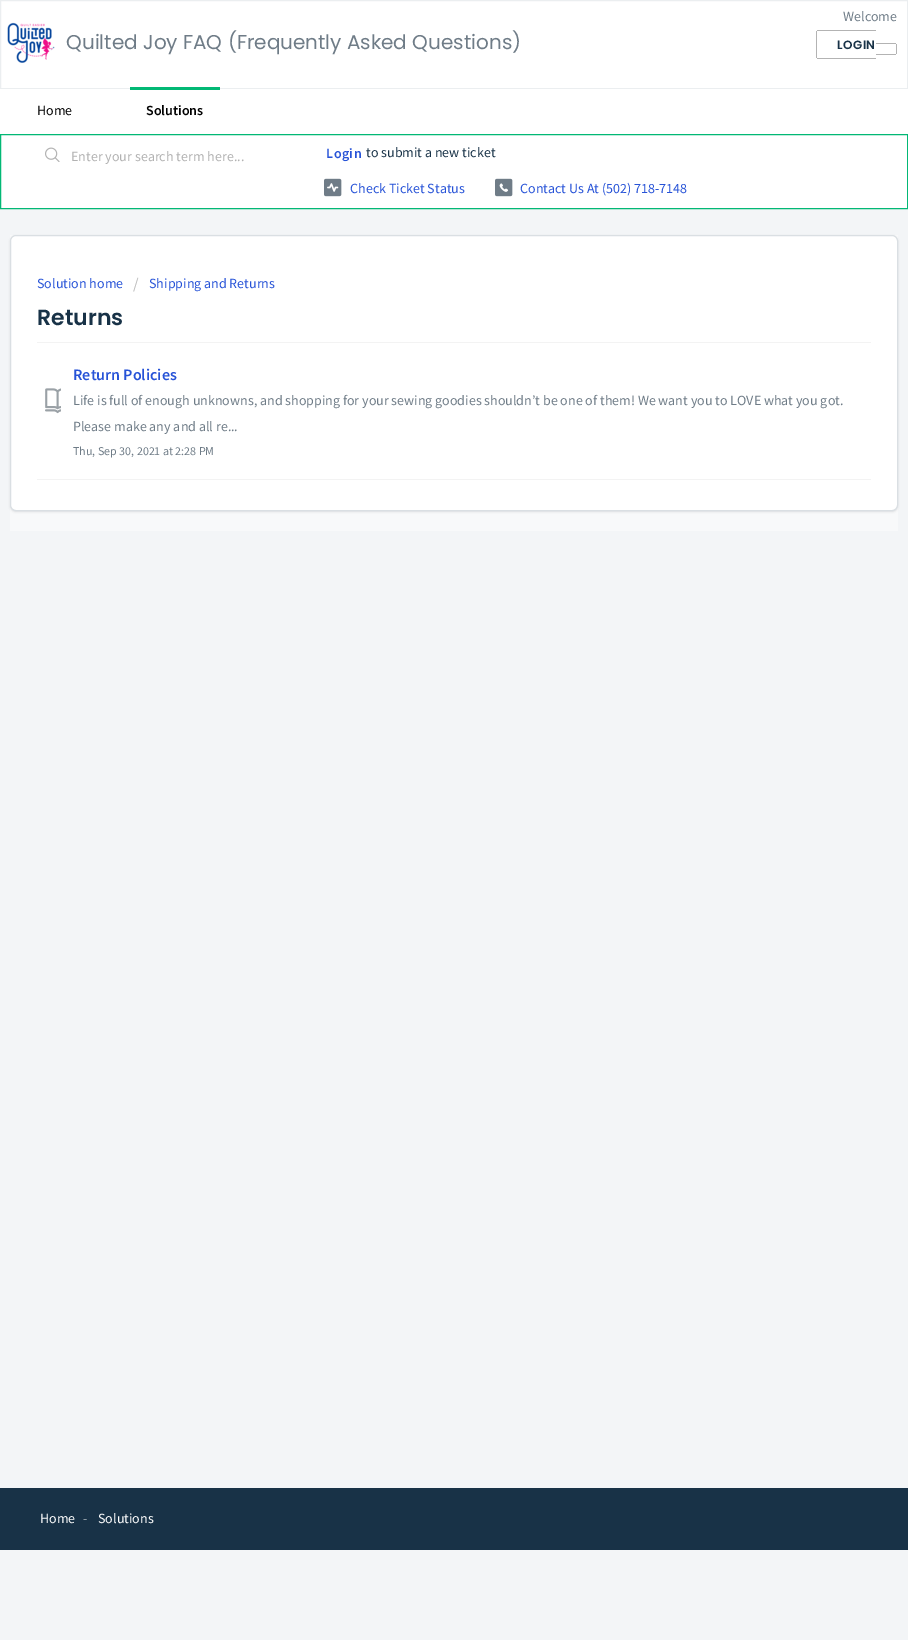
%!PS
<< /PageSize [908 1640] /PageUsesTransparency true >> setpagedevice
/rgb { 3 { 255 div 3 1 roll } repeat setrgbcolor } def
/font { [ exch dup neg 0 0 3 -1 roll 0 0 ] selectfont } def
/text { moveto show } def
/alpha { dup .setfillconstantalpha .setstrokeconstantalpha } def
/roundrect { 5 dict begin { /r /h /w /y /x } { exch def } forall
  x r add y moveto x w add y 2 copy h add r arct x w add y h add x 1 index r arct
  x y h add x y r arct x y 2 copy exch w add exch r arct closepath end } def
/shadow { 12 dict begin { /a /b /q /h /w /y /x } { exch def } forall gsave /was 0 def
  9 -2 -9 { dup b mul 4 div /e exch def 1 sub .425 mul 2.718 exch exp 1 add a .99 .min exch div /now exch def
    1 1 now sub 1 was sub div sub alpha /was now def
    w h .min e 2 mul add 0 gt { x e sub y e sub w e 2 mul add h e 2 mul add
      q e add b .6 mul add w h .min 2 div e add .min 0 .max roundrect fill } if } for grestore end } def
/picture { 5 dict begin { /h /w /y /x /name } { exch def } forall
  gsave x y translate w h scale
  w h 8 [w 0 0 h 0 0] name (r) file false 3 colorimage grestore end } def
0 .pushpdf14devicefilter
0 1640 translate 1 -1 scale
4 setmiterlimit
243 245 247 rgb
0 0 908 1640 rectfill
255 255 255 rgb
0.5 0.5 moveto 907 0 rlineto 0 88 rlineto -907 0 rlineto closepath gsave fill grestore
235 238 240 rgb
stroke
(img_01.rgb) 7 22 48 41 picture
179 179 179 rgb
817 30 59 1 rectfill
817 58 59 1 rectfill
816 31 1 27 rectfill
876 43 20 1 rectfill
896 44 1 10 rectfill
876 54 20 1 rectfill
255 255 255 rgb
0 89 908 45 rectfill
2 184 117 rgb
130 87 90 3 rectfill
255 255 255 rgb
0.5 134.5 moveto 907 0 rlineto 0 74 rlineto -907 0 rlineto closepath gsave fill grestore
2 184 117 rgb
stroke
(img_02.rgb) 45 147 15 15 picture
(img_03.rgb) 324 178 18 19 picture
(img_04.rgb) 495 178 18 19 picture
248 249 250 rgb
10 235 888 296 rectfill
63 63 68 rgb
10 236 888 276 6 1 0.15 shadow
255 255 255 rgb
10.5 235.5 887 275 5.5 roundrect gsave fill grestore
218 223 227 rgb
stroke
243 243 243 rgb
37 479 834 1 rectfill
37 342 834 1 rectfill
(img_05.rgb) 45 388 16 26 picture
24 50 71 rgb
0 1488 908 62 rectfill
/Poppins-Regular 20 font
111 124 135 rgb
(Quilted Joy FAQ \(Frequently Asked Questions\)) 66 49 text
/SourceSansPro-Regular 14 font
(Welcome) 843 21 text
/Poppins-SemiBold 12 font
24 50 71 rgb
837 49 moveto 0.5 0 (LOGIN) ashow
/SourceSansPro-Regular 14 font
0 0 0 rgb
(Home) 37 115 text
/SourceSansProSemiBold-SemiBold 14 font
(Solutions) 146 115 text
/SourceSansPro-Regular 14 font
178 178 178 rgb
(Enter your search term here...) 71 161 text
/SourceSansProSemiBold-SemiBold 14 font
39 83 215 rgb
326 158 moveto 0.5 0 (Login) ashow
/SourceSansPro-Regular 14 font
24 50 71 rgb
(to submit a new ticket) 366 157 text
39 83 215 rgb
(Check Ticket Status) 350 193 text
(Contact Us At \(502\) 718-7148) 520 193 text
(Solution home) 37 288 text
/SourceSansPro-Regular 16 font
187 187 187 rgb
(/) 133 289 text
/SourceSansPro-Regular 14 font
39 83 215 rgb
(Shipping and Returns) 149 288 text
/Poppins-SemiBold 22 font
24 50 71 rgb
(Returns) 37 325 text
/SourceSansProSemiBold-SemiBold 16 font
39 83 215 rgb
(Return Policies) 73 380 text
/SourceSansPro-Regular 14 font
111 124 135 rgb
(Life is full of enough unknowns, and shopping for your sewing goodies shouldn’t be one of them! We want you to LOVE what you got.) 73 405 text
(Please make any and all re...) 73 431 text
/SourceSansPro-Regular 12 font
(Thu, Sep 30, 2021 at 2:28 PM) 73 455 text
/SourceSansPro-Regular 14 font
255 255 255 rgb
(Home) 40 1523 text
140 153 163 rgb
(-) 83 1523 text
255 255 255 rgb
(Solutions) 98 1523 text
.poppdf14devicefilter showpage
